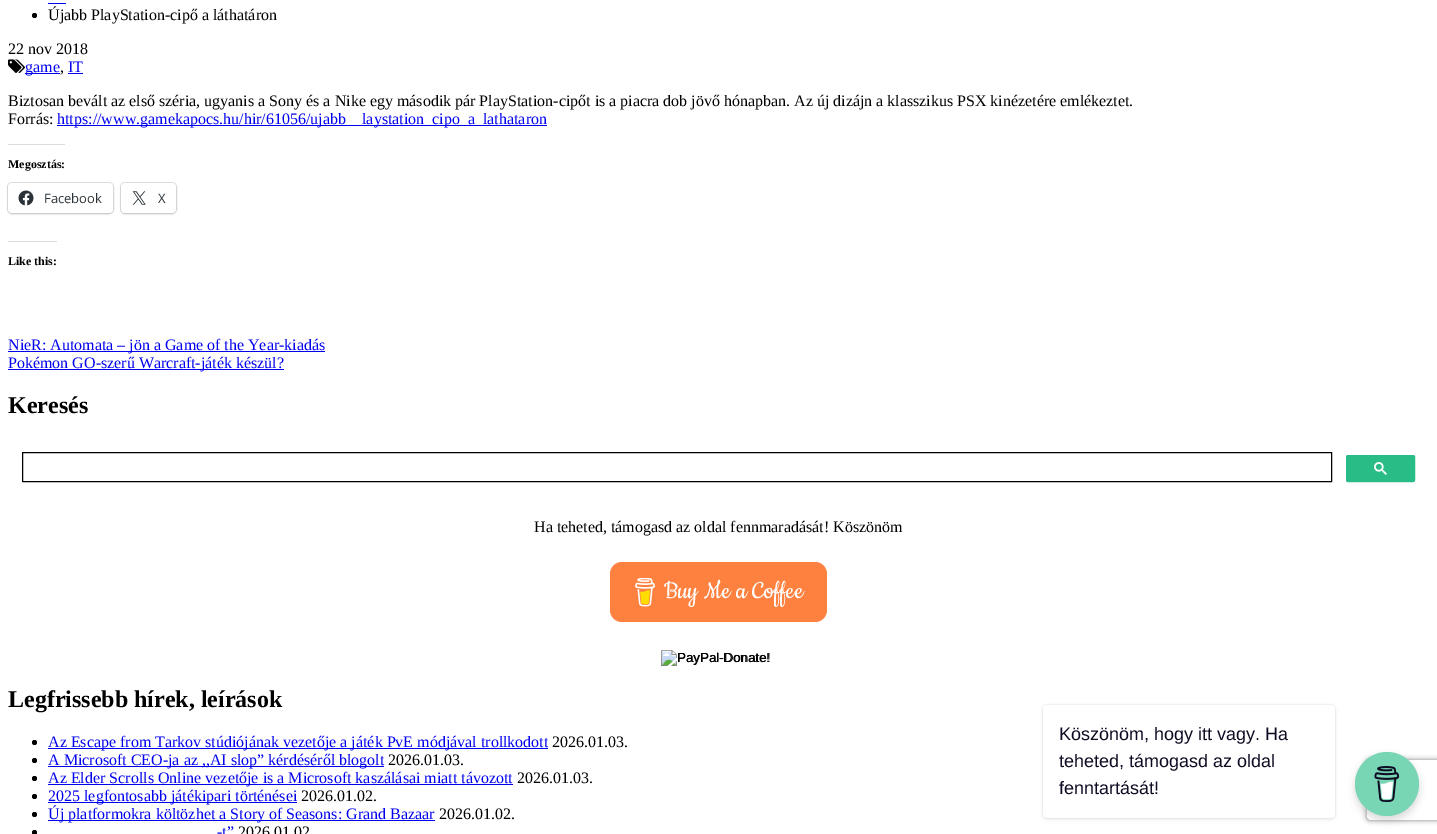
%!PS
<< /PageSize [1437 834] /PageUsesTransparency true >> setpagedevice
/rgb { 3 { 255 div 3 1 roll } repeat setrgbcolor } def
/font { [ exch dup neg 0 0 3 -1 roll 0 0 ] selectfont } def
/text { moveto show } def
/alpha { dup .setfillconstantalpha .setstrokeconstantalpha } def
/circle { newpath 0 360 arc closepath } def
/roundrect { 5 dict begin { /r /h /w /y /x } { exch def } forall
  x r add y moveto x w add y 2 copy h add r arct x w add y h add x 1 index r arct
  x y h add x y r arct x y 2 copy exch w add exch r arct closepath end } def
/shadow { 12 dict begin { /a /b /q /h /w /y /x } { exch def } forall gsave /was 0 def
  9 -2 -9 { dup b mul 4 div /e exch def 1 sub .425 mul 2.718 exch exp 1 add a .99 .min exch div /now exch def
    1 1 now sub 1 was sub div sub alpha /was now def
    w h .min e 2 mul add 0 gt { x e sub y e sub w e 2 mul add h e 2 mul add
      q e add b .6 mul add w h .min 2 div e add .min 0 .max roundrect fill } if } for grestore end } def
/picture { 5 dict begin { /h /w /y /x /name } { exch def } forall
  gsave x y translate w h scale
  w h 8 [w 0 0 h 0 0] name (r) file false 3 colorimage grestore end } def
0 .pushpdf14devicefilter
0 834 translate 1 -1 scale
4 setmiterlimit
255 255 255 rgb
0 0 1437 834 rectfill
0 0 238 rgb
48 3 18 1 rectfill
0 0 0 rgb
34.5 15.5 2.5 circle fill
(img_01.rgb) 8 59 17 14 picture
0 0 238 rgb
25 73 35 1 rectfill
68 73 15 1 rectfill
57 125 490 1 rectfill
220 220 222 rgb
8 144 57 1 rectfill
224 224 224 rgb
7.5 182.5 106 31 4.5 roundrect stroke
0 0 0 rgb
8 184 105 30 4 1 0.12 shadow
255 255 255 rgb
8 183 105 30 4 roundrect fill
(img_02.rgb) 18 190 16 16 picture
224 224 224 rgb
120.5 182.5 56 31 4.5 roundrect stroke
0 0 0 rgb
121 184 55 30 4 1 0.12 shadow
255 255 255 rgb
121 183 55 30 4 roundrect fill
(img_03.rgb) 132 191 14 14 picture
220 220 222 rgb
8 241 49 1 rectfill
0 0 238 rgb
8 351 317 1 rectfill
8 369 276 1 rectfill
0 0 0 rgb
22.5 452.5 1309 29 rectstroke
41 188 134 rgb
1346.5 455.5 68 26 1.5 roundrect gsave fill grestore
stroke
(img_04.rgb) 1374 462 13 13 picture
255 129 63 rgb
610 562 217 60 12 roundrect fill
(img_05.rgb) 635 578 20 29 picture
(img_06.rgb) 661 650 109 16 picture
0 0 0 rgb
34.5 742.5 2.5 circle fill
0 0 238 rgb
48 748 500 1 rectfill
0 0 0 rgb
34.5 760.5 2.5 circle fill
0 0 238 rgb
48 766 336 1 rectfill
0 0 0 rgb
34.5 778.5 2.5 circle fill
0 0 238 rgb
48 784 465 1 rectfill
0 0 0 rgb
34.5 796.5 2.5 circle fill
0 0 238 rgb
48 802 249 1 rectfill
0 0 0 rgb
34.5 814.5 2.5 circle fill
0 0 238 rgb
48 820 387 1 rectfill
0 0 0 rgb
34.5 832.5 2.5 circle fill
1043 705 292 113 4 1 0.15 shadow
1043 707 292 113 4 2.5 0.05 shadow
255 255 255 rgb
1043 705 292 113 4 roundrect fill
0 0 0 rgb
1355 756 64 64 32 4 0.15 shadow
gsave
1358 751 moveto 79 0 rlineto 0 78 rlineto -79 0 rlineto closepath 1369 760 moveto 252 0 rlineto 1 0 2 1 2 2 rcurveto 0 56 rlineto 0 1 -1 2 -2 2 rcurveto -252 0 rlineto -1 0 -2 -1 -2 -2 rcurveto 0 -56 rlineto 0 -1 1 -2 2 -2 rcurveto closepath eoclip newpath
128 128 128 rgb
1367 760 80 60 2 2.5 1 shadow
grestore
121 214 181 rgb
1387 784 32 circle fill
(img_07.rgb) 1374 766 26 36 picture
/LiberationSerif-Regular 16 font
0 0 0 rgb
(Újabb PlayStation-cipő a láthatáron) 48 20 text
(22 nov 2018) 8 54 text
0 0 238 rgb
(game) 25 72 text
0 0 0 rgb
(,) 60 72 text
0 0 238 rgb
(IT) 68 72 text
0 0 0 rgb
(Biztosan bevált az első széria, ugyanis a Sony és a Nike egy második pár PlayStation-cipőt is a piacra dob jövő hónapban. Az új dizájn a klasszikus PSX kinézetére emlékeztet.) 8 106 text
(Forrás:) 8 124 text
0 0 238 rgb
(https://www.gamekapocs.hu/hir/61056/ujabb) 57 124 text
(laystation_cipo_a_lathataron) 362 124 text
/LiberationSerif-Bold 12 font
0 0 0 rgb
(Megosztás:) 8 168 text
/OpenSans-Regular 13 font
44 51 56 rgb
(Facebook) 44 203 text
(X) 158 203 text
/LiberationSerif-Bold 12 font
0 0 0 rgb
(Like this:) 8 265 text
/LiberationSerif-Regular 16 font
0 0 238 rgb
(NieR: Automata – jön a Game of the Year-kiadás) 8 350 text
(Pokémon GO-szerű Warcraft-játék készül?) 8 368 text
/LiberationSerif-Bold 24 font
0 0 0 rgb
(Keresés) 8 413 text
/LiberationSerif-Regular 16 font
(Ha teheted, támogasd az oldal fennmaradását! Köszönöm) 534 532 text
/Cookie-Regular 28 font
255 255 255 rgb
(Buy Me a Coffee) 664 598 text
/LiberationSans-Regular 13.25 font
0 0 0 rgb
(PayPal-Donate!) 677 662 text
/LiberationSerif-Bold 24 font
(Legfrissebb hírek, leírások) 8 707 text
/LiberationSerif-Regular 16 font
0 0 238 rgb
(Az Escape from Tarkov stúdiójának vezetője a játék PvE módjával trollkodott) 48 747 text
0 0 0 rgb
(2026.01.03.) 552 747 text
0 0 238 rgb
(A Microsoft CEO-ja az ,,AI slop” kérdéséről blogolt) 48 765 text
0 0 0 rgb
(2026.01.03.) 388 765 text
0 0 238 rgb
(Az Elder Scrolls Online vezetője is a Microsoft kaszálásai miatt távozott) 48 783 text
0 0 0 rgb
(2026.01.03.) 517 783 text
0 0 238 rgb
(2025 legfontosabb játékipari történései) 48 801 text
0 0 0 rgb
(2026.01.02.) 301 801 text
0 0 238 rgb
(Új platformokra költözhet a Story of Seasons: Grand Bazaar) 48 819 text
0 0 0 rgb
(2026.01.02.) 439 819 text
0 0 238 rgb
(-t”) 217 837 text
0 0 0 rgb
(2026.01.02) 238 837 text
/LiberationSans-Regular 18 font
13 12 34 rgb
(Köszönöm, hogy itt vagy. Ha) 1059 740 text
(teheted, támogasd az oldal) 1059 767 text
(fenntartását!) 1059 794 text
.poppdf14devicefilter showpage
